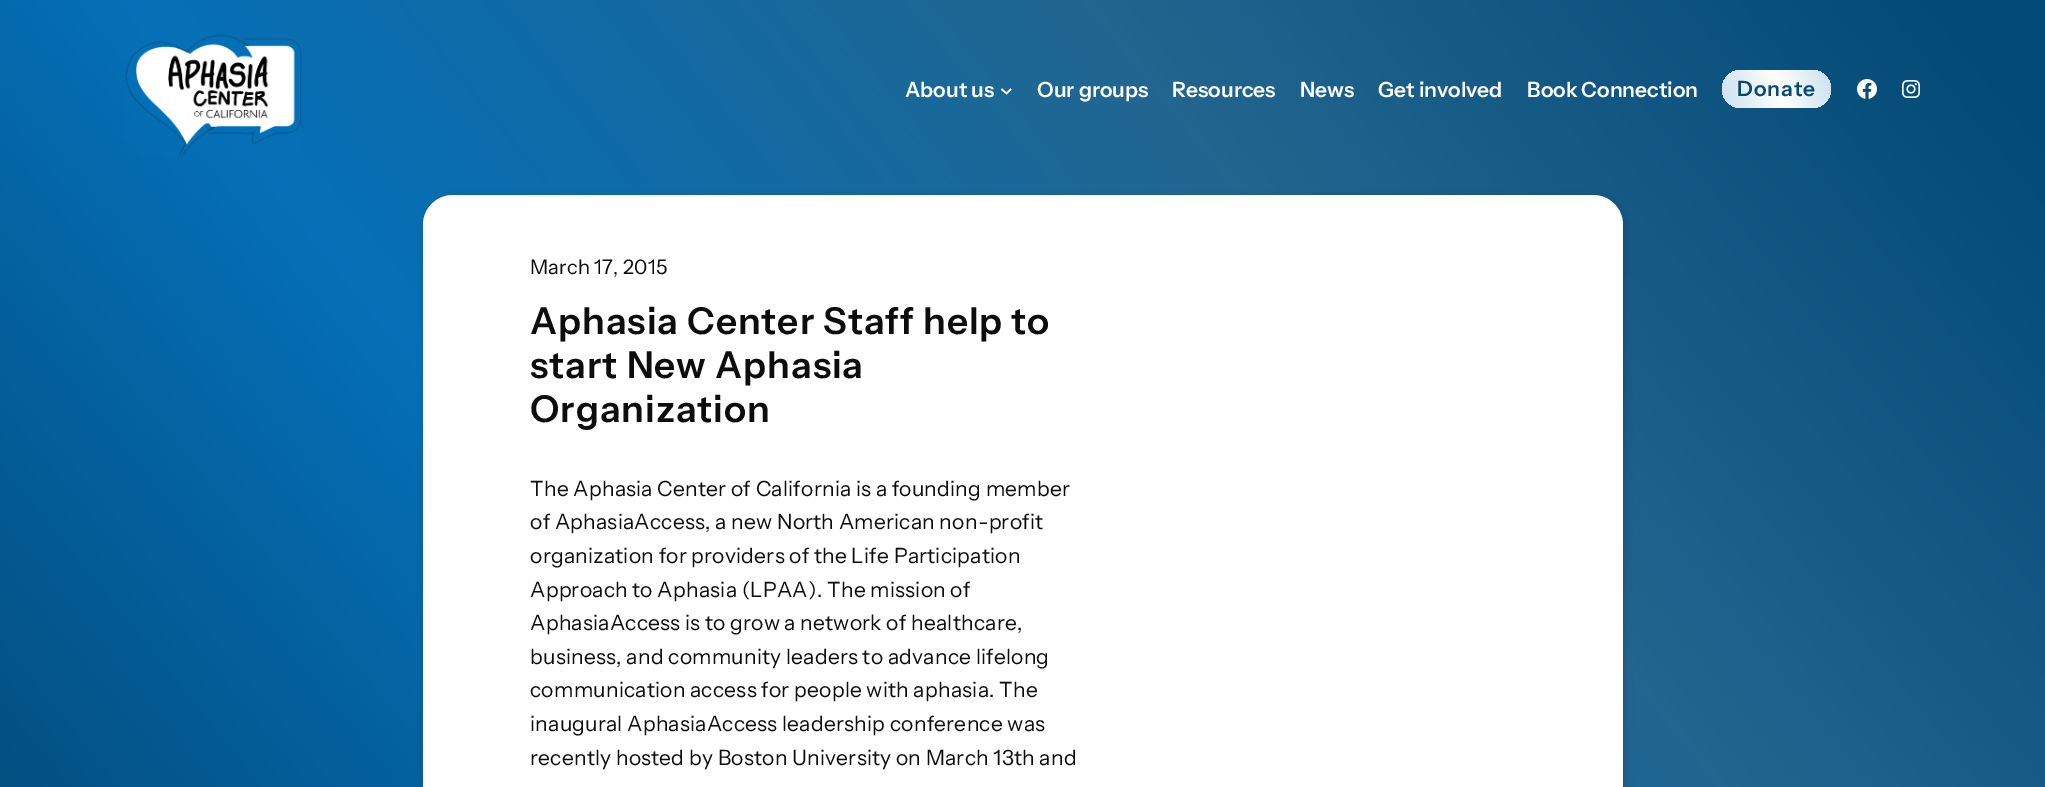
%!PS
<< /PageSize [2045 787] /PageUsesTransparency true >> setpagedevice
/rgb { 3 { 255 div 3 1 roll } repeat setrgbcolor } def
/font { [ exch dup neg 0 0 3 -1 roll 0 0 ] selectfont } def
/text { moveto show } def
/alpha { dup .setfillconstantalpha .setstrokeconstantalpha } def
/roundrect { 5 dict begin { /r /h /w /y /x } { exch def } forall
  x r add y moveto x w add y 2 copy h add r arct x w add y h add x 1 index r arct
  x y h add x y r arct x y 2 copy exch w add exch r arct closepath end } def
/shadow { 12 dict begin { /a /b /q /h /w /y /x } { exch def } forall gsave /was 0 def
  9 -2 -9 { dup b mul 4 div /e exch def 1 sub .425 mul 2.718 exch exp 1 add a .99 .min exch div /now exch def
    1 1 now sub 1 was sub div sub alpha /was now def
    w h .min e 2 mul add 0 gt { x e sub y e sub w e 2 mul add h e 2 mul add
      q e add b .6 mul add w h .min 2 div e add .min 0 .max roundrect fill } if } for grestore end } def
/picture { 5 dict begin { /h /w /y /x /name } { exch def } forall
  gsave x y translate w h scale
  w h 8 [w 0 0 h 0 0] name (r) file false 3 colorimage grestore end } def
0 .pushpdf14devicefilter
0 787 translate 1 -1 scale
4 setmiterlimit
255 255 255 rgb
0 0 2045 787 rectfill
gsave 0 0 moveto 2045 0 rlineto 0 787 rlineto -2045 0 rlineto closepath clip newpath
<< /ShadingType 2 /ColorSpace /DeviceRGB /Coords [71 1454 1974 -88] /Extend [true true] /Function << /FunctionType 3 /Domain [0 1] /Functions [<< /FunctionType 2 /Domain [0 1] /C0 [0.012 0.29 0.467] /C1 [0.012 0.29 0.467] /N 1 >> << /FunctionType 2 /Domain [0 1] /C0 [0.012 0.29 0.467] /C1 [0.02 0.439 0.718] /N 1 >> << /FunctionType 2 /Domain [0 1] /C0 [0.02 0.439 0.718] /C1 [0.133 0.4 0.565] /N 1 >> << /FunctionType 2 /Domain [0 1] /C0 [0.133 0.4 0.565] /C1 [0.012 0.29 0.467] /N 1 >> << /FunctionType 2 /Domain [0 1] /C0 [0.012 0.29 0.467] /C1 [0.012 0.29 0.467] /N 1 >>] /Bounds [0.1 0.39 0.7 0.97] /Encode [0 1 0 1 0 1 0 1 0 1] >> >> shfill grestore
(img_01.rgb) 125 34 177 123 picture
1.6 setlinewidth
1001.5 89 moveto 5 4.5 rlineto 4.5 -4.5 rlineto stroke
gsave 1722 70 109 38 19 roundrect clip newpath
<< /ShadingType 2 /ColorSpace /DeviceRGB /Coords [1832 75 1721 103] /Extend [true true] /Function << /FunctionType 3 /Domain [0 1] /Functions [<< /FunctionType 2 /Domain [0 1] /C0 [0.8 0.882 0.969] /C1 [0.8 0.882 0.969] /N 1 >> << /FunctionType 2 /Domain [0 1] /C0 [0.8 0.882 0.969] /C1 [0.878 0.925 0.953] /N 1 >> << /FunctionType 2 /Domain [0 1] /C0 [0.878 0.925 0.953] /C1 [1 1 1] /N 1 >> << /FunctionType 2 /Domain [0 1] /C0 [1 1 1] /C1 [0.878 0.925 0.953] /N 1 >> << /FunctionType 2 /Domain [0 1] /C0 [0.878 0.925 0.953] /C1 [0.804 0.886 0.969] /N 1 >>] /Bounds [0.02 0.19 0.48 0.8] /Encode [0 1 0 1 0 1 0 1 0 1] >> >> shfill grestore
(img_02.rgb) 1857 79 20 20 picture
(img_03.rgb) 1902 80 18 18 picture
3 23 36 rgb
425 197 1200 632 30 4 0.21 shadow
255 255 255 rgb
423 195 1200 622 30 roundrect fill
/InstrumentSans-SemiBold 21 font
(About us) 905 97 text
(Our groups) 1037 97 text
(Resources) 1172 97 text
(News) 1300 97 text
(Get involved) 1378 97 text
(Book Connection) 1527 97 text
3 74 119 rgb
1737 96 moveto 1 0 (Donate) ashow
/InstrumentSans-Regular 20 font
13 13 13 rgb
530 274 moveto 0.25 0 (March 17, 2015) ashow
/InstrumentSans-SemiBold 37 font
530 334 moveto 1 0 (Aphasia Center Staff help to) ashow
530 378 moveto 1 0 (start New Aphasia) ashow
530 422 moveto 1 0 (Organization) ashow
/InstrumentSans-Regular 21 font
530 496 moveto 0.25 0 (The Aphasia Center of California is a founding member) ashow
530 529 moveto 0.25 0 (of AphasiaAccess, a new North American non-profit) ashow
530 563 moveto 0.25 0 (organization for providers of the Life Participation) ashow
530 597 moveto 0.25 0 (Approach to Aphasia \(LPAA\). The mission of) ashow
530 630 moveto 0.25 0 (AphasiaAccess is to grow a network of healthcare,) ashow
530 664 moveto 0.25 0 (business, and community leaders to advance lifelong) ashow
530 697 moveto 0.25 0 (communication access for people with aphasia. The) ashow
530 731 moveto 0.25 0 (inaugural AphasiaAccess leadership conference was) ashow
530 765 moveto 0.25 0 (recently hosted by Boston University on March 13th and) ashow
.poppdf14devicefilter showpage
